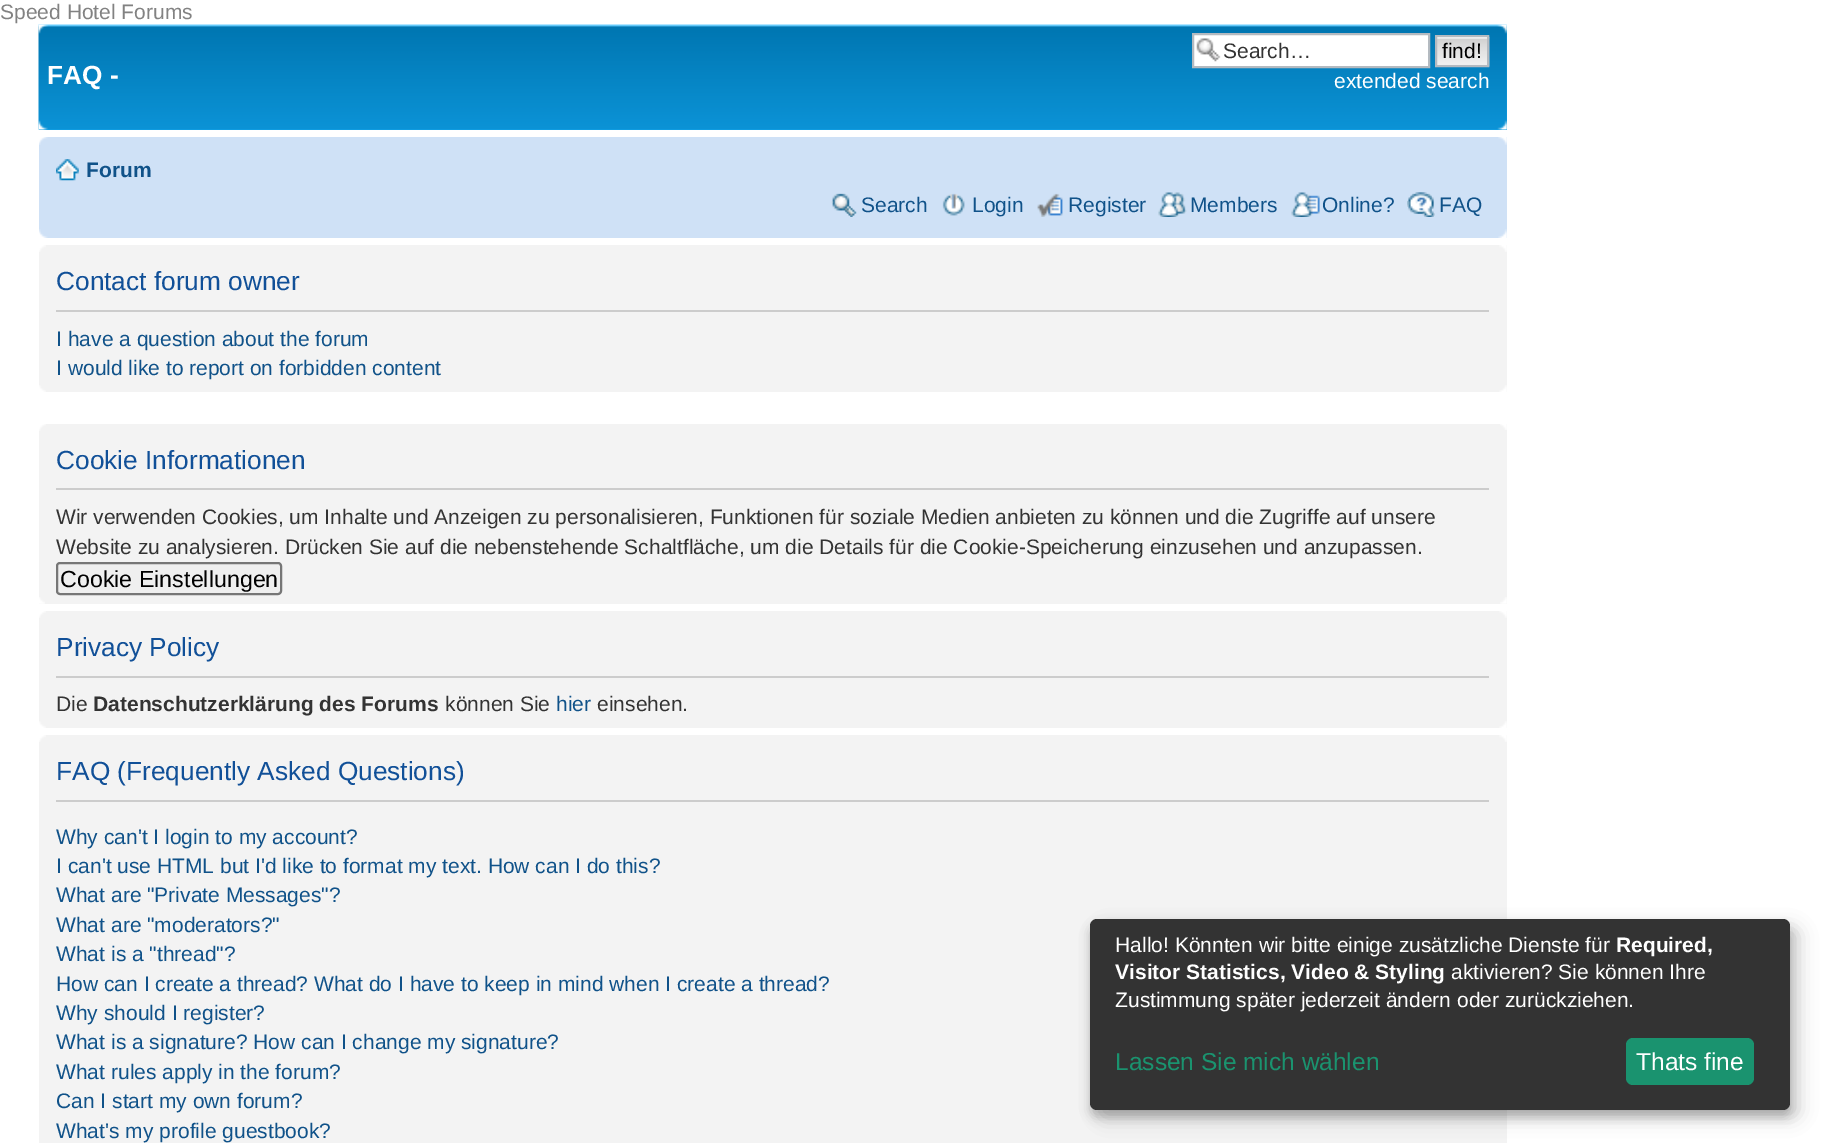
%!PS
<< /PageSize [1824 1143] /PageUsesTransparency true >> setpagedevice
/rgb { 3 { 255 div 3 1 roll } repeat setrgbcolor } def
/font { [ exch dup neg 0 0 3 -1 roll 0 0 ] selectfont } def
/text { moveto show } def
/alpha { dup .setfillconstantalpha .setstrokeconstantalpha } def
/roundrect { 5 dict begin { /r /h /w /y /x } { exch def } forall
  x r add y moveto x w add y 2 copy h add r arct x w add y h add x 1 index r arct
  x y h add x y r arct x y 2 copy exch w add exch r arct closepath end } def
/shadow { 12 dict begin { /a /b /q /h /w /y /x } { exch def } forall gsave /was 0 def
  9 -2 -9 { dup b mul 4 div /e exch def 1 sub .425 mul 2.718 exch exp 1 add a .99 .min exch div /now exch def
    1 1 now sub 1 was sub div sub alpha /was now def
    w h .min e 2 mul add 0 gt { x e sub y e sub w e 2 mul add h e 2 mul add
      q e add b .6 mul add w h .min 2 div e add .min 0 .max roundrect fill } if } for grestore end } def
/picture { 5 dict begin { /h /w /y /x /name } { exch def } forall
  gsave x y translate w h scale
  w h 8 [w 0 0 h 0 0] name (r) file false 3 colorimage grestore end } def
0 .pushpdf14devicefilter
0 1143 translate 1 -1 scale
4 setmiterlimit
255 255 255 rgb
0 0 1824 1143 rectfill
18 163 235 rgb
39 25 1468 105 rectfill
(img_01.rgb) 38 24 1469 106 picture
(img_02.rgb) 38 24 10 10 picture
(img_03.rgb) 1497 24 10 10 picture
255 255 255 rgb
1194 35 234 31 rectfill
(img_04.rgb) 1196 38 25 24 picture
180 186 192 rgb
2 setlinewidth
1193 34 236 33 rectstroke
(img_05.rgb) 1437 36 53 31 picture
1436 36 52 30 rectstroke
(img_06.rgb) 38 120 10 10 picture
(img_07.rgb) 1497 120 10 10 picture
207 225 246 rgb
39 137 1468 101 rectfill
(img_08.rgb) 39 137 9 8 picture
(img_09.rgb) 1498 137 9 8 picture
(img_10.rgb) 56 159 23 22 picture
(img_11.rgb) 1158 192 29 25 picture
(img_12.rgb) 1291 192 29 25 picture
(img_13.rgb) 1407 192 28 25 picture
(img_14.rgb) 831 193 26 24 picture
(img_15.rgb) 1407 192 28 25 picture
(img_16.rgb) 832 193 25 24 picture
(img_17.rgb) 942 193 23 23 picture
(img_18.rgb) 1037 193 26 24 picture
(img_19.rgb) 39 229 9 9 picture
(img_20.rgb) 1498 229 9 9 picture
243 243 243 rgb
39 245 1468 147 rectfill
(img_21.rgb) 39 245 7 7 picture
(img_22.rgb) 1499 245 8 7 picture
204 204 204 rgb
56 310 1433 2 rectfill
(img_23.rgb) 39 385 7 7 picture
(img_24.rgb) 1499 385 8 7 picture
243 243 243 rgb
39 424 1468 180 rectfill
(img_25.rgb) 39 424 7 7 picture
(img_26.rgb) 1500 424 7 6 picture
204 204 204 rgb
56 488 1433 2 rectfill
239 239 239 rgb
57 563 224 31 3 roundrect gsave fill grestore
118 118 118 rgb
stroke
(img_27.rgb) 39 597 6 7 picture
(img_28.rgb) 1500 597 7 7 picture
243 243 243 rgb
39 611 1468 117 rectfill
(img_29.rgb) 39 611 7 7 picture
(img_30.rgb) 1499 611 8 7 picture
204 204 204 rgb
56 676 1433 2 rectfill
(img_23.rgb) 39 721 7 7 picture
(img_24.rgb) 1499 721 8 7 picture
243 243 243 rgb
39 735 1468 408 rectfill
(img_21.rgb) 39 735 7 7 picture
(img_22.rgb) 1499 735 8 7 picture
204 204 204 rgb
56 800 1433 2 rectfill
0 0 0 rgb
1099 928 700 190 7 9 0.19 shadow
1090 926 700 191 7 5 0.2 shadow
51 51 51 rgb
1090 919 700 191 7 roundrect fill
26 147 111 rgb
1626 1038 128 47 7 roundrect fill
/LiberationSans-Regular 21 font
130 130 130 rgb
(Speed Hotel Forums) 0 19 text
/LiberationSans-Bold 26.25 font
255 255 255 rgb
(FAQ -) 47 84 text
/LiberationSans-Regular 21 font
51 51 51 rgb
(Search…) 1223 58 text
0 0 0 rgb
(find!) 1442 58 text
255 255 255 rgb
(extended search) 1334 88 text
/LiberationSans-Bold 21 font
16 82 137 rgb
(Forum) 86 177 text
/LiberationSans-Regular 21 font
(Search) 861 212 text
(Login) 972 212 text
(Register) 1068 212 text
(Members) 1190 212 text
(Online?) 1322 212 text
(FAQ) 1439 212 text
/LiberationSans-Regular 26.25 font
17 80 152 rgb
(Contact forum owner) 56 290 text
/LiberationSans-Regular 21 font
16 82 137 rgb
(I have a question about the forum) 56 346 text
(I would like to report on forbidden content) 56 375 text
/LiberationSans-Regular 26.25 font
17 80 152 rgb
(Cookie Informationen) 56 469 text
/LiberationSans-Regular 21 font
51 51 51 rgb
(Wir verwenden Cookies, um Inhalte und Anzeigen zu personalisieren, Funktionen für soziale Medien anbieten zu können und die Zugriffe auf unsere) 56 524 text
(Website zu analysieren. Drücken Sie auf die nebenstehende Schaltfläche, um die Details für die Cookie-Speicherung einzusehen und anzupassen.) 56 554 text
/LiberationSans-Regular 23.25 font
0 0 0 rgb
(Cookie Einstellungen) 60 587 text
/LiberationSans-Regular 26.25 font
17 80 152 rgb
(Privacy Policy) 56 656 text
/LiberationSans-Regular 21 font
51 51 51 rgb
(Die) 56 711 text
/LiberationSans-Bold 21 font
(Datenschutzerklärung des Forums) 93 711 text
/LiberationSans-Regular 21 font
(können Sie) 445 711 text
16 82 137 rgb
(hier) 556 711 text
51 51 51 rgb
(einsehen.) 597 711 text
/LiberationSans-Regular 26.25 font
17 80 152 rgb
(FAQ \(Frequently Asked Questions\)) 56 780 text
/LiberationSans-Regular 21 font
16 82 137 rgb
(Why can't I login to my account?) 56 844 text
(I can't use HTML but I'd like to format my text. How can I do this?) 56 873 text
(What are "Private Messages"?) 56 902 text
(What are "moderators?") 56 932 text
(What is a "thread"?) 56 961 text
(How can I create a thread? What do I have to keep in mind when I create a thread?) 56 991 text
(Why should I register?) 56 1020 text
(What is a signature? How can I change my signature?) 56 1049 text
(What rules apply in the forum?) 56 1079 text
(Can I start my own forum?) 56 1108 text
(What's my profile guestbook?) 56 1138 text
255 255 255 rgb
(Hallo! Könnten wir bitte einige zusätzliche Dienste für) 1115 952 text
/LiberationSans-Bold 21 font
(Required,) 1616 952 text
(Visitor Statistics, Video & Styling) 1115 979 text
/LiberationSans-Regular 21 font
(aktivieren? Sie können Ihre) 1451 979 text
(Zustimmung später jederzeit ändern oder zurückziehen.) 1115 1007 text
/LiberationSans-Regular 24.5 font
26 147 111 rgb
(Lassen Sie mich wählen) 1115 1070 text
255 255 255 rgb
(Thats fine) 1636 1070 text
.poppdf14devicefilter showpage
